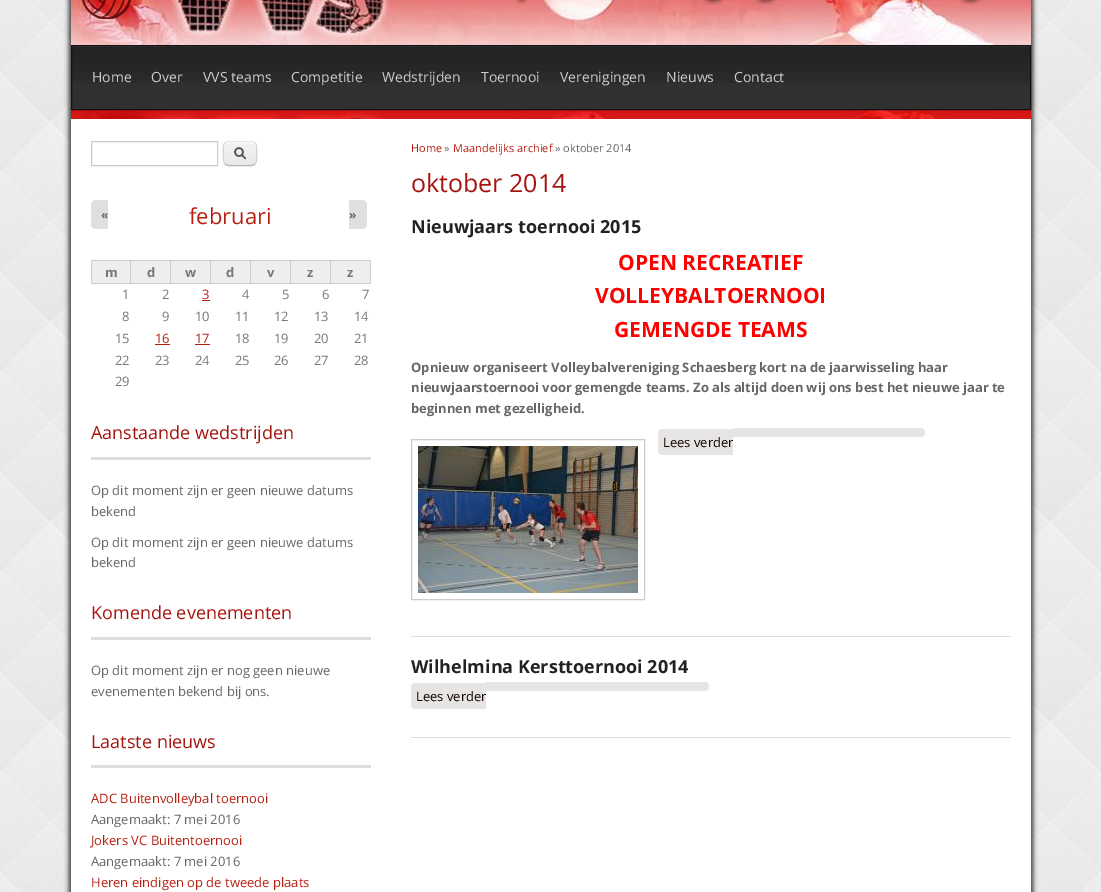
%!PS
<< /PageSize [1101 892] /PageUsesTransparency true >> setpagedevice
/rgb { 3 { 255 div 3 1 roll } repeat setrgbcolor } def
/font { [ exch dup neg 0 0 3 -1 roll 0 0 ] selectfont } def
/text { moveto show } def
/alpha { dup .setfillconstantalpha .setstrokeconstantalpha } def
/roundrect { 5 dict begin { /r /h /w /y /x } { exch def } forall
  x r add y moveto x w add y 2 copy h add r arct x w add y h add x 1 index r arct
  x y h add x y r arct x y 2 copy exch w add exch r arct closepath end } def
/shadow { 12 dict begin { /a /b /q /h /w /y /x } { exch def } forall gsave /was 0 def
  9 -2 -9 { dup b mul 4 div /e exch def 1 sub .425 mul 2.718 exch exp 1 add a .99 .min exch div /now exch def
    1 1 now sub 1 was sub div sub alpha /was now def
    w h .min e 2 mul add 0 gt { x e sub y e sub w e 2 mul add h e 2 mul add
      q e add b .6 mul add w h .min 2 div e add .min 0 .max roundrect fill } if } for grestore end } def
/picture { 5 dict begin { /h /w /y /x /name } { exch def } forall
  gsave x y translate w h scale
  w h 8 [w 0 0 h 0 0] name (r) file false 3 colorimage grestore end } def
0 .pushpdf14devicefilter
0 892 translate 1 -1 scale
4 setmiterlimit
255 255 255 rgb
0 0 1101 892 rectfill
(img_01.rgb) 0 0 1101 892 picture
51 51 51 rgb
69 -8 964 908 0 2.5 1 shadow
(img_02.rgb) 71 0 960 119 picture
(img_03.rgb) 82 0 49 19 picture
48 48 48 rgb
72 83 958 26 rectfill
(img_04.rgb) 72 46 958 37 picture
17 17 17 rgb
71.5 45.5 959 64 rectstroke
255 255 255 rgb
71 119 960 773 rectfill
204 204 204 rgb
91.5 141.5 126 24 rectstroke
(img_05.rgb) 223 142 34 24 picture
255 255 255 rgb
229 143 moveto 18 0 rlineto 7.5 0 9 1.5 9 6 rcurveto 0 -7 -2.5 -7 -8.5 -7 rcurveto -15 0 rlineto -6.5 0 -8.5 0.5 -8.5 7 rcurveto 0 -3 1 -6 5 -6 rcurveto closepath 256 159.5 moveto 0 1.5 rlineto closepath 224 161 moveto 0 -1 rlineto closepath eofill
228 228 228 rgb
225 143 moveto 1 -1 2.5 -1.5 4 -1.5 rcurveto 22 0 rlineto 1.5 0 3 0.5 4 1.5 rcurveto stroke
210 210 210 rgb
255 143 moveto 2.5 2.5 1.5 7.5 1.5 10.5 rcurveto 0 3 1 8 -1.5 10.5 rcurveto stroke
180 180 180 rgb
255 164 moveto -1 1 -2.5 1.5 -4 1.5 rcurveto -22 0 rlineto -1.5 0 -3 -0.5 -4 -1.5 rcurveto stroke
210 210 210 rgb
225 164 moveto -2.5 -2.5 -1.5 -7.5 -1.5 -10.5 rcurveto 0 -3 -1 -8 1.5 -10.5 rcurveto stroke
223 223 223 rgb
96 200 moveto 12 0 rlineto 0 29 rlineto -12 0 rlineto -3 0 -5 -2 -5 -5 rcurveto 0 -19 rlineto 0 -3 2 -5 5 -5 rcurveto closepath fill
349 200 moveto 13 0 rlineto 3 0 5 2 5 5 rcurveto 0 19 rlineto 0 3 -2 5 -5 5 rcurveto -13 0 rlineto closepath fill
238 238 238 rgb
92 261 38 22 rectfill
204 204 204 rgb
330 260 41 1 rectfill
370 260 1 24 rectfill
330 283 41 1 rectfill
330 260 1 24 rectfill
290 260 41 1 rectfill
290 283 41 1 rectfill
290 260 1 24 rectfill
250 260 41 1 rectfill
250 283 41 1 rectfill
250 260 1 24 rectfill
210 260 41 1 rectfill
210 283 41 1 rectfill
210 260 1 24 rectfill
170 260 41 1 rectfill
170 283 41 1 rectfill
170 260 1 24 rectfill
130 260 41 1 rectfill
130 283 41 1 rectfill
130 260 1 24 rectfill
91 260 40 1 rectfill
91 283 40 1 rectfill
91 260 1 24 rectfill
238 238 238 rgb
131 261 39 22 rectfill
171 261 39 22 rectfill
211 261 39 22 rectfill
251 261 39 22 rectfill
291 261 39 22 rectfill
331 261 39 22 rectfill
182 31 16 rgb
202 300 8 1 rectfill
155 344 15 1 rectfill
195 344 15 1 rectfill
221 221 221 rgb
91 457 280 3 rectfill
91 637 280 3 rectfill
91 765 280 3 rectfill
411 636 600 1 rectfill
204 204 204 rgb
411.5 439.5 233 160 rectstroke
(img_06.rgb) 418 446 220 147 picture
231 229 227 rgb
662 429 moveto 71 0 rlineto 0 26 rlineto -71 0 rlineto -2 0 -4 -2 -4 -4 rcurveto 0 -18 rlineto 0 -2 2 -4 4 -4 rcurveto closepath fill
733 428 moveto 188 0 rlineto 2 0 4 2 4 4 rcurveto 0 1 rlineto 0 2 -2 4 -4 4 rcurveto -188 0 rlineto closepath fill
221 221 221 rgb
411 737 600 1 rectfill
231 229 227 rgb
415 683 moveto 71 0 rlineto 0 26 rlineto -71 0 rlineto -2 0 -4 -2 -4 -4 rcurveto 0 -18 rlineto 0 -2 2 -4 4 -4 rcurveto closepath fill
486 682 moveto 219 0 rlineto 2 0 4 2 4 4 rcurveto 0 1 rlineto 0 2 -2 4 -4 4 rcurveto -219 0 rlineto closepath fill
/OpenSans-Regular 14 font
204 204 204 rgb
(Home) 92 82 text
(Over) 151 82 text
(VVS teams) 203 82 text
(Competitie) 291 82 text
(Wedstrijden) 382 82 text
(Toernooi) 481 82 text
(Verenigingen) 560 82 text
(Nieuws) 666 82 text
(Contact) 734 82 text
/OpenSans-Regular 22 font
182 31 16 rgb
(februari) 189 224 text
/OpenSans-Bold 12 font
102 102 102 rgb
(«) 101 219 text
(») 349 219 text
/OpenSans-Bold 13 font
119 119 119 rgb
(m) 105 277 text
(d) 147 277 text
(w) 185 277 text
(d) 226 277 text
(v) 267 277 text
(z) 307 277 text
(z) 347 277 text
/OpenSans-Regular 13 font
(1) 122 299 text
(2) 162 299 text
182 31 16 rgb
(3) 202 299 text
119 119 119 rgb
(4) 242 299 text
(5) 282 299 text
(6) 322 299 text
(7) 362 299 text
(8) 122 321 text
(9) 162 321 text
(10) 195 321 text
(11) 235 321 text
(12) 274 321 text
(13) 314 321 text
(14) 354 321 text
(15) 115 343 text
182 31 16 rgb
(16) 155 343 text
(17) 195 343 text
119 119 119 rgb
(18) 235 343 text
(19) 274 343 text
(20) 314 343 text
(21) 354 343 text
(22) 115 365 text
(23) 155 365 text
(24) 195 365 text
(25) 235 365 text
(26) 274 365 text
(27) 314 365 text
(28) 354 365 text
(29) 115 386 text
/OpenSans-Regular 18 font
165 19 15 rgb
(Aanstaande wedstrijden) 91 439 text
/OpenSans-Regular 13 font
102 102 102 rgb
(Op dit moment zijn er geen nieuwe datums) 91 495 text
(bekend) 91 516 text
(Op dit moment zijn er geen nieuwe datums) 91 547 text
(bekend) 91 567 text
/OpenSans-Regular 18 font
165 19 15 rgb
(Komende evenementen) 91 619 text
/OpenSans-Regular 13 font
102 102 102 rgb
(Op dit moment zijn er nog geen nieuwe) 91 675 text
(evenementen bekend bij ons.) 91 696 text
/OpenSans-Regular 18 font
165 19 15 rgb
(Laatste nieuws) 91 748 text
/OpenSans-Regular 13 font
182 31 16 rgb
(ADC Buitenvolleybal toernooi) 91 803 text
102 102 102 rgb
(Aangemaakt: 7 mei 2016) 91 824 text
182 31 16 rgb
(Jokers VC Buitentoernooi) 91 845 text
102 102 102 rgb
(Aangemaakt: 7 mei 2016) 91 866 text
182 31 16 rgb
(Heren eindigen op de tweede plaats) 91 887 text
/OpenSans-Regular 11 font
(Home) 411 152 text
102 102 102 rgb
(») 444 152 text
182 31 16 rgb
(Maandelijks archief) 453 152 text
102 102 102 rgb
(» oktober 2014) 555 152 text
/OpenSans-Regular 25 font
165 19 15 rgb
(oktober 2014) 411 192 text
/OpenSans-Bold 18 font
34 34 34 rgb
(Nieuwjaars toernooi 2015) 411 233 text
/OpenSans-Bold 21 font
255 0 0 rgb
(OPEN RECREATIEF) 618 270 text
(VOLLEYBALTOERNOOI) 595 303 text
(GEMENGDE TEAMS) 614 337 text
/OpenSans-Bold 13 font
102 102 102 rgb
(Opnieuw organiseert Volleybalvereniging Schaesberg kort na de jaarwisseling haar) 411 372 text
(nieuwjaarstoernooi voor gemengde teams. Zo als altijd doen wij ons best het nieuwe jaar te) 411 392 text
(beginnen met gezelligheid.) 411 413 text
/OpenSans-Regular 13 font
16 1 0 rgb
(Lees verder) 663 447 text
/OpenSans-Bold 18 font
34 34 34 rgb
(Wilhelmina Kersttoernooi 2014) 411 673 text
/OpenSans-Regular 13 font
16 1 0 rgb
(Lees verder) 416 701 text
.poppdf14devicefilter showpage
